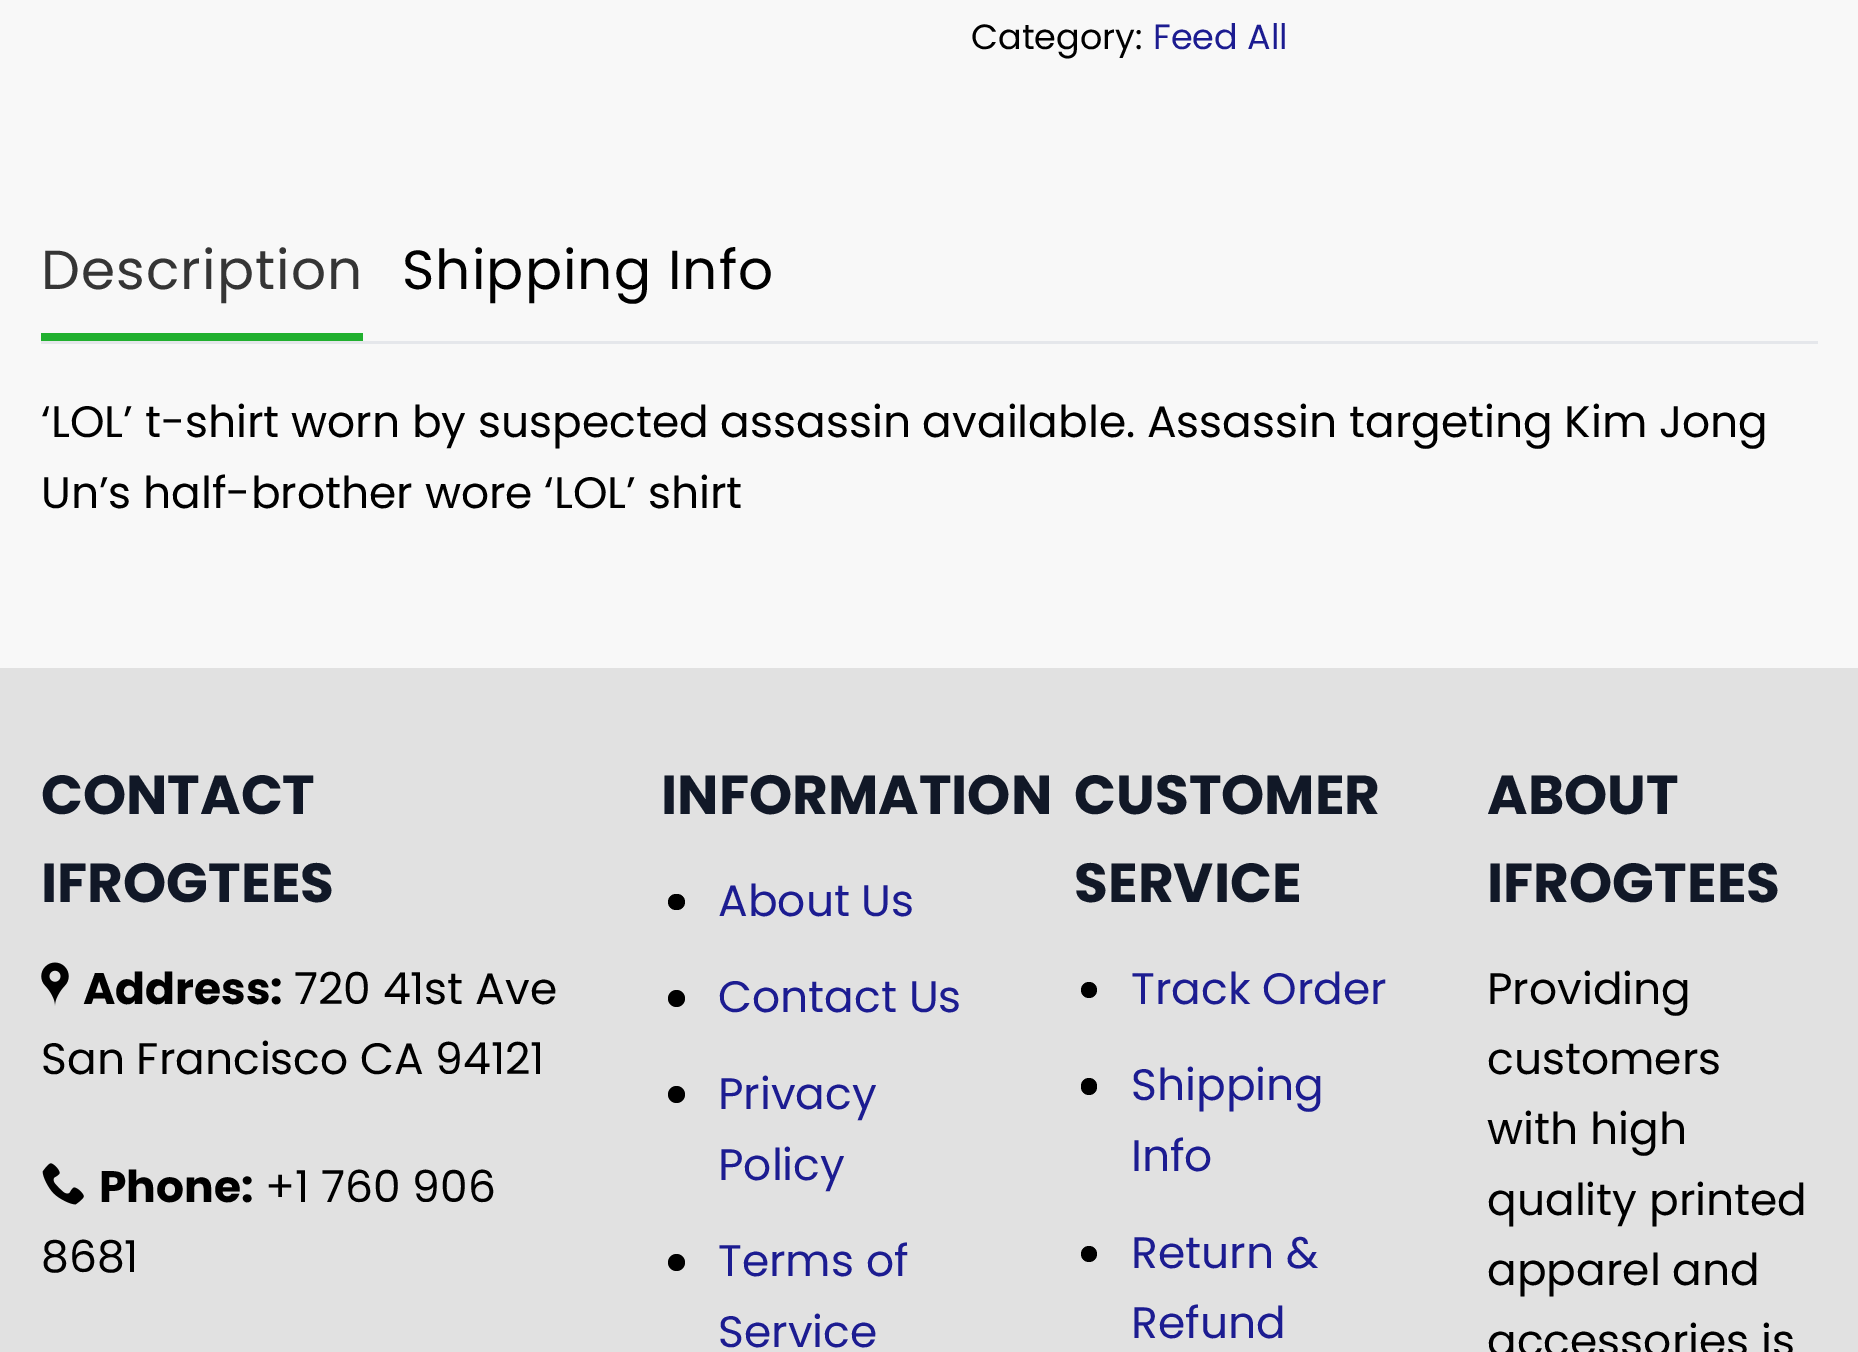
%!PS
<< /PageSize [1858 1352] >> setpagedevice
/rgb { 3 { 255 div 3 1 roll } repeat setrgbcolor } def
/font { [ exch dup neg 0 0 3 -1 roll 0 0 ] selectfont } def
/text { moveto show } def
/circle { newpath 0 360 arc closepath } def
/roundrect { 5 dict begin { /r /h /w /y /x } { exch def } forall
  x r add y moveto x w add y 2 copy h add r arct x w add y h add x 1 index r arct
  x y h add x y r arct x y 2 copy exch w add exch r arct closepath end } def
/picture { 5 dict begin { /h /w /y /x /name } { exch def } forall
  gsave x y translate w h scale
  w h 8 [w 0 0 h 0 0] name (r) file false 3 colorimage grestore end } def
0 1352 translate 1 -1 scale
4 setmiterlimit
248 248 248 rgb
0 0 1858 1352 rectfill
229 231 235 rgb
41 341 1777 3 rectfill
33 176 47 rgb
41 333 322 8 rectfill
225 225 225 rgb
0 668 1858 684 rectfill
(img_01.rgb) 41 962 28 44 picture
(img_02.rgb) 42 1163 42 42 picture
0 0 0 rgb
668 894 17 16 8 roundrect fill
676.5 998.5 8.5 circle fill
676.5 1094.5 8.5 circle fill
676.5 1262.5 8.5 circle fill
1089 990 8 circle fill
1081 1078 16 17 8 roundrect fill
1089 1254 8 circle fill
/Poppins-Regular 35 font
(Category:) 971 49 text
28 28 145 rgb
(Feed All) 1153 49 text
/Poppins-Regular 55 font
53 53 53 rgb
41 289 moveto 1.1 0 (Description) ashow
0 0 0 rgb
402 289 moveto 1.1 0 (Shipping Info) ashow
/Poppins-Regular 44 font
(‘LOL’ t-shirt worn by suspected assassin available. Assassin targeting Kim Jong) 41 437 text
(Un’s half-brother wore ‘LOL’ shirt) 41 508 text
/Poppins-Bold 55 font
17 24 39 rgb
(CONTACT) 41 814 text
(IFROGTEES) 41 902 text
/Poppins-Bold 44 font
0 0 0 rgb
(Address:) 83 1004 text
/Poppins-Regular 44 font
(720 41st Ave) 294 1004 text
(San Francisco CA 94121) 41 1074 text
/Poppins-Bold 44 font
(Phone:) 99 1202 text
/Poppins-Regular 44 font
(+1 760 906) 265 1202 text
(8681) 41 1272 text
/Poppins-Bold 55 font
17 24 39 rgb
(INFORMATION) 661 814 text
/Poppins-Regular 44 font
28 28 145 rgb
(About Us) 718 916 text
(Contact Us) 718 1012 text
(Privacy) 718 1109 text
(Policy) 718 1180 text
(Terms of) 718 1276 text
(Service) 718 1347 text
/Poppins-Bold 55 font
17 24 39 rgb
(CUSTOMER) 1074 814 text
(SERVICE) 1074 902 text
/Poppins-Regular 44 font
28 28 145 rgb
(Track Order) 1131 1004 text
(Shipping) 1131 1100 text
(Info) 1131 1171 text
(Return &) 1131 1268 text
(Refund) 1131 1338 text
/Poppins-Bold 55 font
17 24 39 rgb
(ABOUT) 1487 814 text
(IFROGTEES) 1487 902 text
/Poppins-Regular 44 font
0 0 0 rgb
(Providing) 1487 1004 text
(customers) 1487 1074 text
(with high) 1487 1144 text
(quality printed) 1487 1215 text
(apparel and) 1487 1285 text
(accessories is) 1487 1356 text
showpage
